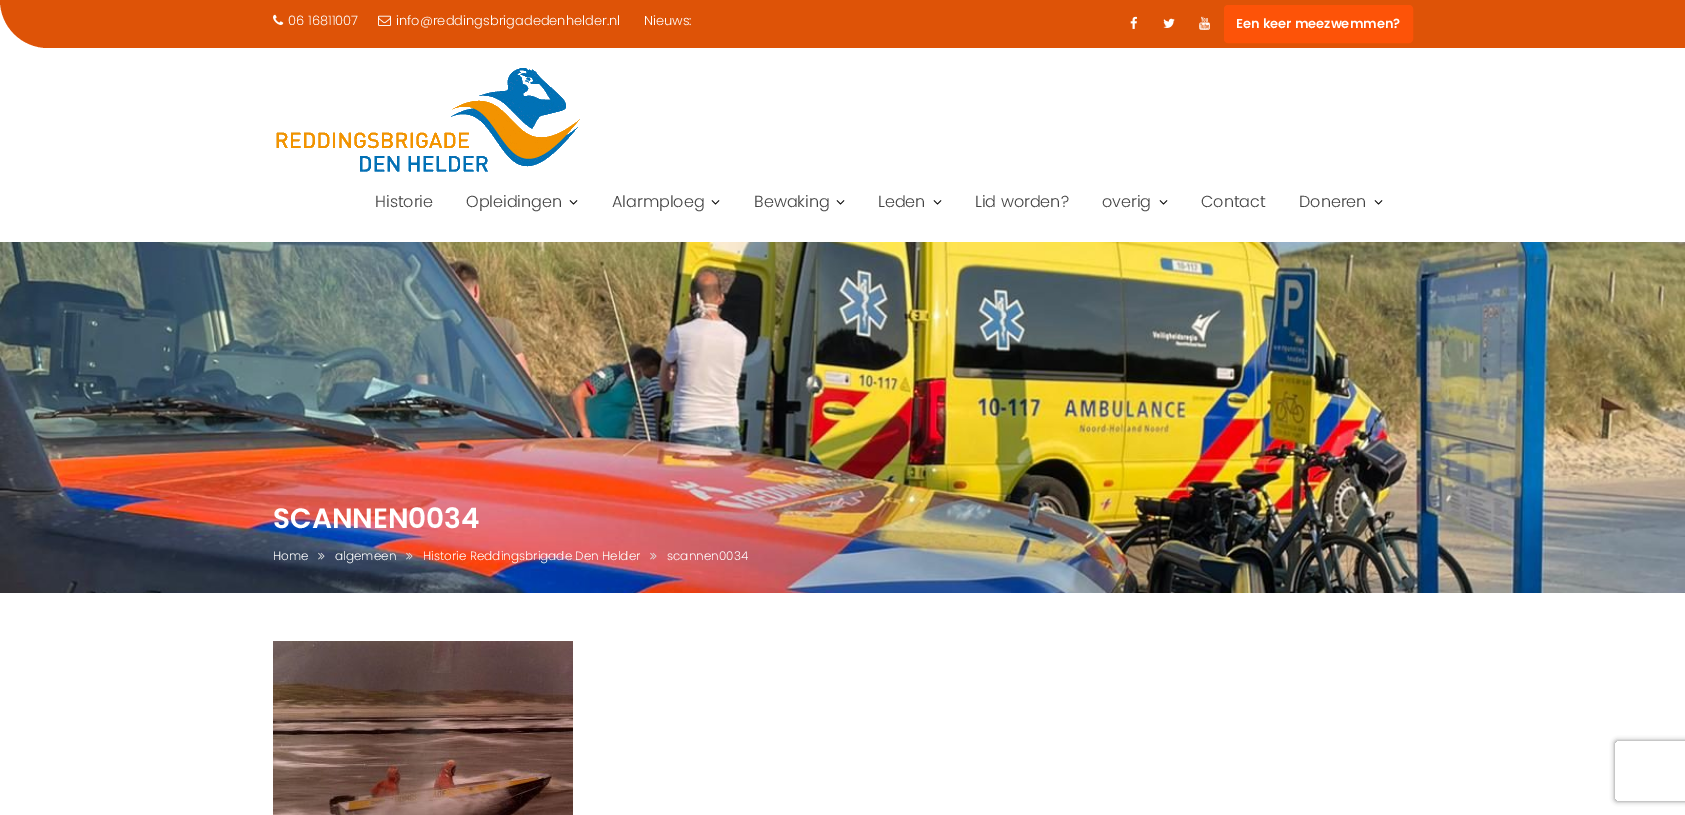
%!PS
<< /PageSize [1685 815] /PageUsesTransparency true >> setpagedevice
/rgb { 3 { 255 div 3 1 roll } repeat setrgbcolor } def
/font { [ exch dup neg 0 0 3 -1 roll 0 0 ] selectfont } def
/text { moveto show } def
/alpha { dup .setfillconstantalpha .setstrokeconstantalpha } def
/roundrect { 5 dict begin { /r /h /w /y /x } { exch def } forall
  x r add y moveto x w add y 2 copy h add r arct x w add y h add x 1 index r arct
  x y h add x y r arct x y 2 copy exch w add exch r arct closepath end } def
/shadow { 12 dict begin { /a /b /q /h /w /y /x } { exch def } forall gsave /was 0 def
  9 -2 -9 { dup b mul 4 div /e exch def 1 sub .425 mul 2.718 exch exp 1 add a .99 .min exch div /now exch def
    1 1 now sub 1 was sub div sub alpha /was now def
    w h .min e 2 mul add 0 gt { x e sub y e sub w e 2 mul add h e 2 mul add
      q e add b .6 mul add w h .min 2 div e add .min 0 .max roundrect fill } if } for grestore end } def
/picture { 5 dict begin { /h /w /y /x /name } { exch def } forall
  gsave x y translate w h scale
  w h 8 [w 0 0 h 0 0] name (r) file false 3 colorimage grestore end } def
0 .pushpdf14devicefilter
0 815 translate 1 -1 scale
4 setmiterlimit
255 255 255 rgb
0 0 1685 815 rectfill
222 83 7 rgb
0 0 moveto 1685 0 rlineto 0 48 rlineto -1637 0 rlineto -26.5 0 -48 -21.5 -48 -48 rcurveto closepath fill
(img_01.rgb) 273 14 11 11 picture
(img_02.rgb) 378 15 13 11 picture
(img_03.rgb) 1130 16 7 13 picture
(img_04.rgb) 1163 18 12 10 picture
(img_05.rgb) 1199 16 11 14 picture
253 83 8 rgb
1225 6 187 36 3 roundrect gsave fill grestore
2 setlinewidth
stroke
(img_06.rgb) 276 68 304 104 picture
(img_07.rgb) 569 200 9 5 picture
(img_07.rgb) 711 200 9 5 picture
(img_07.rgb) 836 200 9 5 picture
(img_07.rgb) 933 200 9 5 picture
(img_07.rgb) 1159 200 9 5 picture
(img_07.rgb) 1374 200 9 5 picture
(img_08.rgb) 0 242 1685 351 picture
(img_09.rgb) 318 552 7 8 picture
(img_10.rgb) 406 552 7 8 picture
(img_11.rgb) 650 552 7 8 picture
(img_12.rgb) 273 641 300 174 picture
gsave
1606 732 moveto 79 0 rlineto 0 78 rlineto -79 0 rlineto closepath 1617 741 moveto 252 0 rlineto 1 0 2 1 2 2 rcurveto 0 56 rlineto 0 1 -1 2 -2 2 rcurveto -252 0 rlineto -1 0 -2 -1 -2 -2 rcurveto 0 -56 rlineto 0 -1 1 -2 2 -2 rcurveto closepath eoclip newpath
128 128 128 rgb
1615 741 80 60 2 2.5 1 shadow
grestore
/Poppins-Light 13 font
255 255 255 rgb
(06 16811007) 288 25 text
(info@reddingsbrigadedenhelder.nl) 396 25 text
(Nieuws:) 644 25 text
/Poppins-SemiBold 13 font
(Een keer meezwemmen?) 1236 28 text
/Poppins-Light 16 font
68 68 68 rgb
(Historie) 375 207 text
(Opleidingen) 466 207 text
(Alarmploeg) 612 207 text
(Bewaking) 754 207 text
(Leden) 878 207 text
(Lid worden?) 975 207 text
(overig) 1102 207 text
(Contact) 1201 207 text
(Doneren) 1299 207 text
/Poppins-SemiBold 28 font
255 255 255 rgb
(SCANNEN0034) 273 528 text
/Poppins-Light 12 font
(Home) 273 560 text
(algemeen) 335 560 text
(Historie Reddingsbrigade Den Helder) 423 560 text
(scannen0034) 667 560 text
.poppdf14devicefilter showpage
